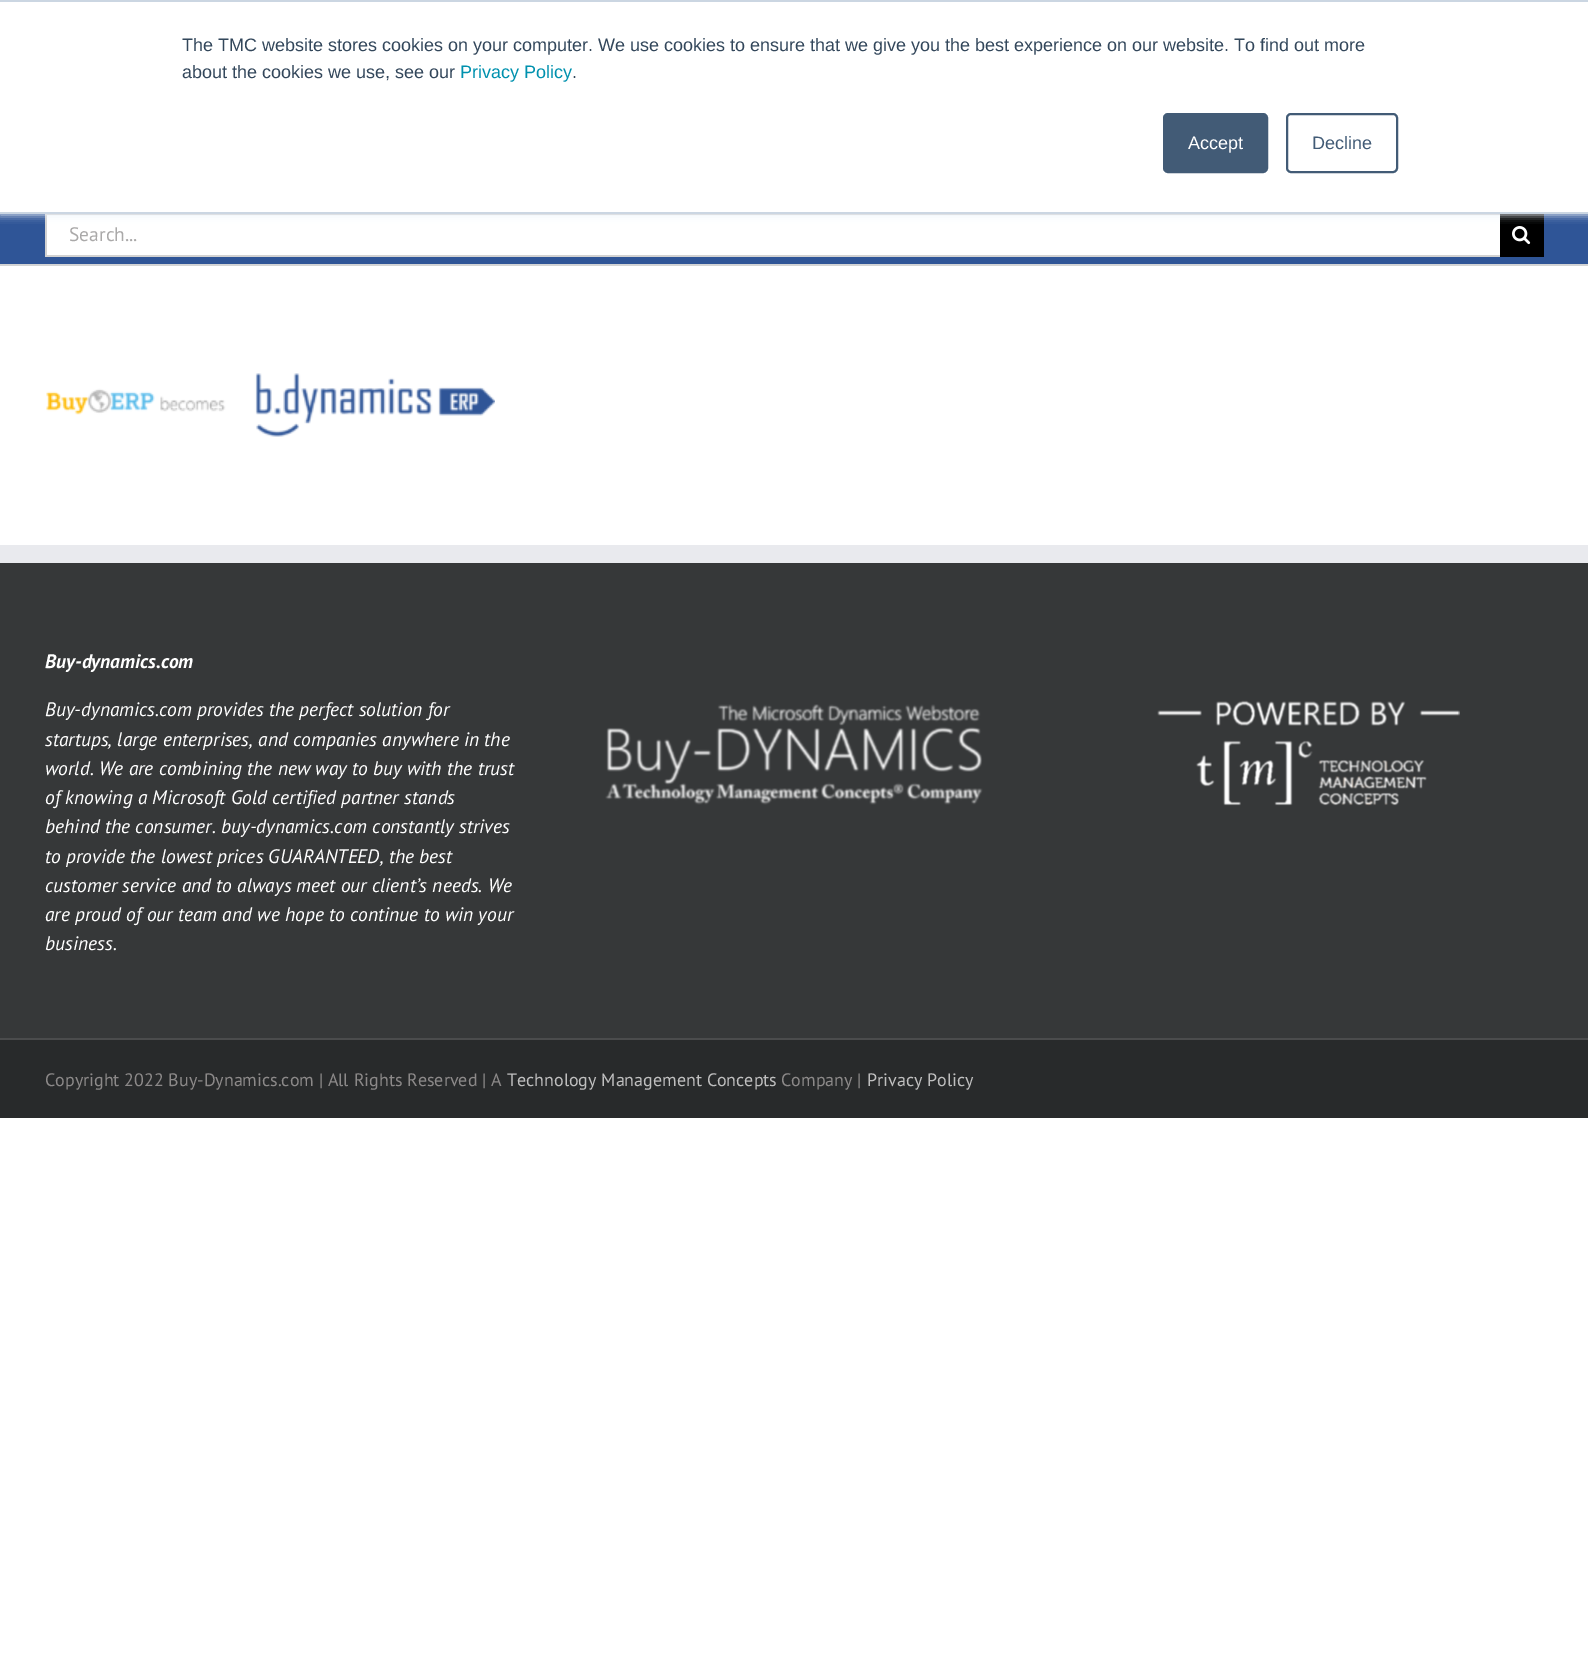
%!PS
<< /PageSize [1588 1656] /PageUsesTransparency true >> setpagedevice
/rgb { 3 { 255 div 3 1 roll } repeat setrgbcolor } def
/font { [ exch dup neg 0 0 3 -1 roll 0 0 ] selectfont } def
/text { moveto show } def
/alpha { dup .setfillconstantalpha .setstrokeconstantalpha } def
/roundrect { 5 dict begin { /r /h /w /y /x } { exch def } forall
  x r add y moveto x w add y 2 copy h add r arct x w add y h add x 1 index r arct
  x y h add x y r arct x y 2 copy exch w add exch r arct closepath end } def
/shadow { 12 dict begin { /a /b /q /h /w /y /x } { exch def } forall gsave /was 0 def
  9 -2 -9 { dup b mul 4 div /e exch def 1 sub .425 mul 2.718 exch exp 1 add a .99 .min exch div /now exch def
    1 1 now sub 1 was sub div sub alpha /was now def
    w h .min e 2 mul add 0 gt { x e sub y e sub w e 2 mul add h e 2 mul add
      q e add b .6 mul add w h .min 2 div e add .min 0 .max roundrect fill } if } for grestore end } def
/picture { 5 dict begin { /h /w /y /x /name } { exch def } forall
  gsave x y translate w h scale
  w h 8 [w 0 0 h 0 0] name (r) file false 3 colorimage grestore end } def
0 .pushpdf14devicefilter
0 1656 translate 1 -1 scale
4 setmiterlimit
255 255 255 rgb
0 0 1588 1656 rectfill
47 85 151 rgb
0 214 1588 50 rectfill
255 255 255 rgb
47 215 1453 40 rectfill
210 210 210 rgb
45 214 1455 1 rectfill
45 255 1455 2 rectfill
45 213 2 44 rectfill
0 0 0 rgb
1500 214 44 43 rectfill
(img_01.rgb) 1512 226 19 19 picture
234 240 246 rgb
0 2 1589 213 0 4 1 shadow
255 255 255 rgb
0 2 1588 210 rectfill
203 214 226 rgb
0 0 1588 2 rectfill
0 212 1588 2 rectfill
66 91 118 rgb
1164 114 103 58 4 roundrect gsave fill grestore
2 setlinewidth
stroke
1287 114 110 58 4 roundrect stroke
210 211 212 rgb
0 264 1588 2 rectfill
(img_02.rgb) 46 373 449 64 picture
54 56 57 rgb
0 563 1588 475 rectfill
233 234 238 rgb
0 545 1588 18 rectfill
(img_03.rgb) 605 704 378 101 picture
(img_04.rgb) 1157 700 303 106 picture
40 42 43 rgb
0 1040 1588 78 rectfill
75 76 77 rgb
0 1038 1588 2 rectfill
/LiberationSans-Regular 18 font
51 71 91 rgb
(The TMC website stores cookies on your computer. We use cookies to ensure that we give you the best experience on our website. To find out more) 182 51 text
(about the cookies we use, see our) 182 78 text
0 145 174 rgb
(Privacy Policy) 460 78 text
51 71 91 rgb
(.) 572 78 text
255 255 255 rgb
(Accept) 1188 149 text
66 91 118 rgb
(Decline) 1312 149 text
/PTSans-Regular 19.5 font
170 169 169 rgb
(Search...) 69 241 text
/PTSans-BoldItalic 19.5 font
255 255 255 rgb
(Buy-dynamics.com) 45 668 text
/PTSans-Italic 19.5 font
(Buy-dynamics.com provides the perfect solution for) 45 716 text
(startups, large enterprises, and companies anywhere in the) 45 746 text
(world. We are combining the new way to buy with the trust) 45 775 text
(of knowing a Microsoft Gold certified partner stands) 45 804 text
(behind the consumer. buy-dynamics.com constantly strives) 45 833 text
(to provide the lowest prices GUARANTEED, the best) 45 863 text
(customer service and to always meet our client’s needs. We) 45 892 text
(are proud of our team and we hope to continue to win your) 45 921 text
(business.) 45 950 text
/PTSans-Regular 18 font
140 137 137 rgb
(Copyright 2022 Buy-Dynamics.com | All Rights Reserved | A) 45 1086 text
191 191 191 rgb
(Technology Management Concepts) 507 1086 text
140 137 137 rgb
(Company |) 781 1086 text
191 191 191 rgb
(Privacy Policy) 867 1086 text
.poppdf14devicefilter showpage
